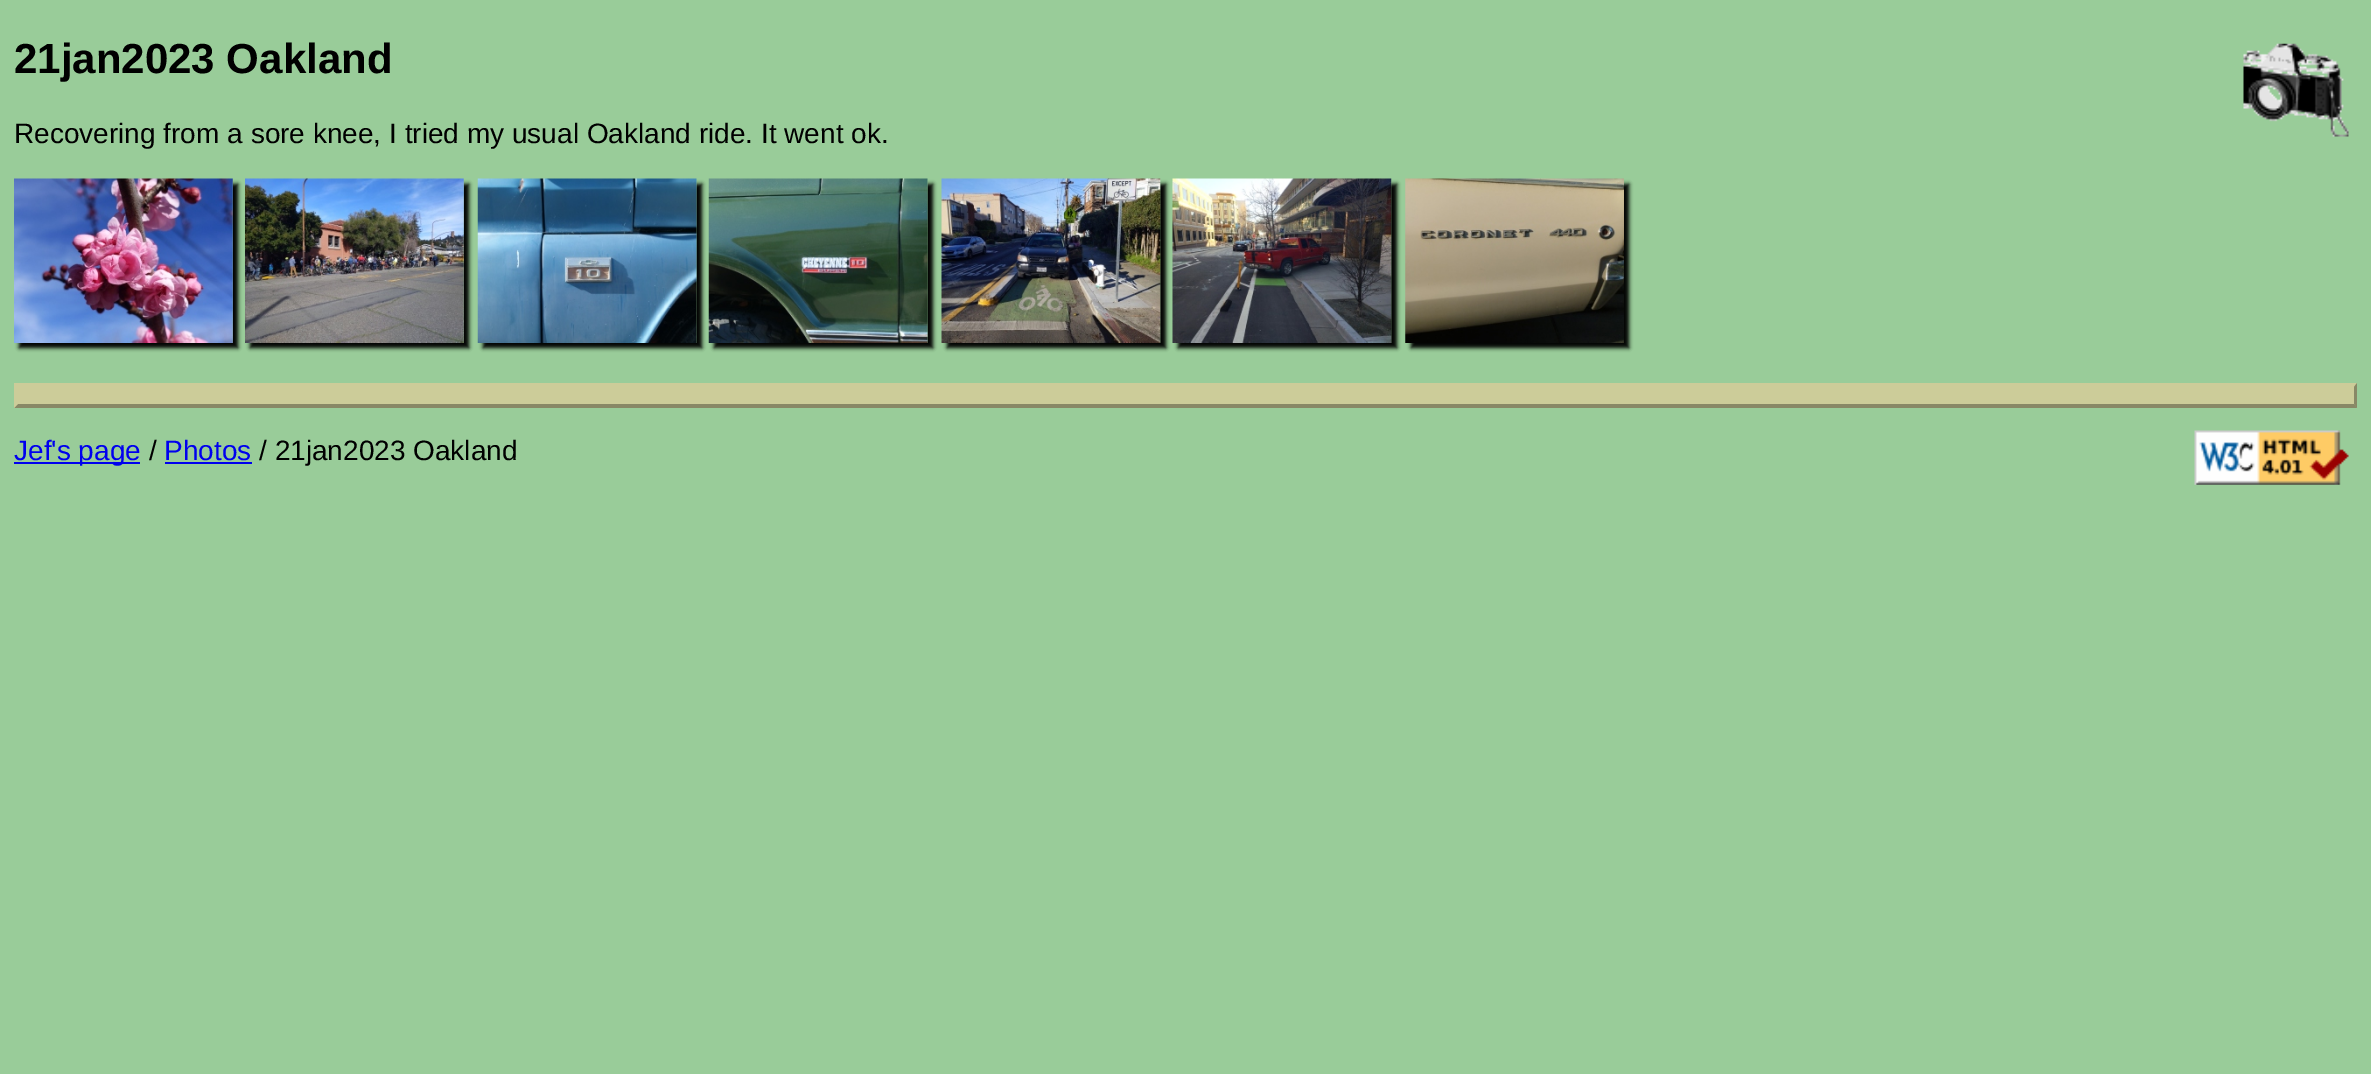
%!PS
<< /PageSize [2371 1074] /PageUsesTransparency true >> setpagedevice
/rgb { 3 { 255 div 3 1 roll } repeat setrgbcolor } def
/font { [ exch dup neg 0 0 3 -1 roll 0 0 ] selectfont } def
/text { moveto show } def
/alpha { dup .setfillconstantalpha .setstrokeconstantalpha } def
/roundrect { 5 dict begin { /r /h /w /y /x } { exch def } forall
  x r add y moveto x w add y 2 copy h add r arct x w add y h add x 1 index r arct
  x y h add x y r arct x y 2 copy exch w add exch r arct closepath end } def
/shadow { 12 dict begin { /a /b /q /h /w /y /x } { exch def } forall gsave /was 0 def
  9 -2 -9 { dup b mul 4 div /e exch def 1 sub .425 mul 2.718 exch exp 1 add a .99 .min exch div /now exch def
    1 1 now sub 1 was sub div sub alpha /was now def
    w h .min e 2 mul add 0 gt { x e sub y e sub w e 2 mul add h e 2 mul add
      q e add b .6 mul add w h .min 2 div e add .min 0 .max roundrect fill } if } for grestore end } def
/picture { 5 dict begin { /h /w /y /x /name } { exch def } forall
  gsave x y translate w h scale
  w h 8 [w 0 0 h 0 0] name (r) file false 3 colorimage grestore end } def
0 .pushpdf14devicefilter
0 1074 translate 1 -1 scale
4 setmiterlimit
153 204 153 rgb
0 0 2371 1074 rectfill
(img_01.rgb) 2243 43 106 94 picture
0 0 0 rgb
19 184 219 164 0 2 1 shadow
250 184 219 164 0 2 1 shadow
483 184 219 164 0 2 1 shadow
714 184 219 164 0 2 1 shadow
947 184 219 164 0 2 1 shadow
1178 184 219 164 0 2 1 shadow
1411 184 218 164 0 2 1 shadow
(img_02.rgb) 14 178 219 165 picture
(img_03.rgb) 245 178 219 165 picture
(img_04.rgb) 477 178 220 165 picture
(img_05.rgb) 708 178 220 165 picture
(img_06.rgb) 941 178 220 165 picture
(img_07.rgb) 1172 178 220 165 picture
(img_08.rgb) 1405 178 219 165 picture
204 204 153 rgb
14 383 2343 25 rectfill
136 136 102 rgb
2357 383 moveto 0 25 rlineto -3 -4 rlineto 0 -17 rlineto closepath fill
2357 408 moveto -2343 0 rlineto 4 -4 rlineto 2336 0 rlineto closepath fill
204 204 153 rgb
14 408 moveto 0 -25 rlineto 3.5 4 rlineto 0 17 rlineto closepath fill
0 0 238 rgb
14 462 126 2 rectfill
165 462 87 2 rectfill
(img_09.rgb) 2194 430 155 55 picture
/LiberationSans-Bold 42 font
0 0 0 rgb
(21jan2023 Oakland) 14 73 text
/LiberationSans-Regular 28 font
(Recovering from a sore knee, I tried my usual Oakland ride. It went ok.) 14 143 text
0 0 238 rgb
(Jef's page) 14 460 text
0 0 0 rgb
(/) 149 460 text
0 0 238 rgb
(Photos) 164 460 text
0 0 0 rgb
(/ 21jan2023 Oakland) 259 460 text
.poppdf14devicefilter showpage
